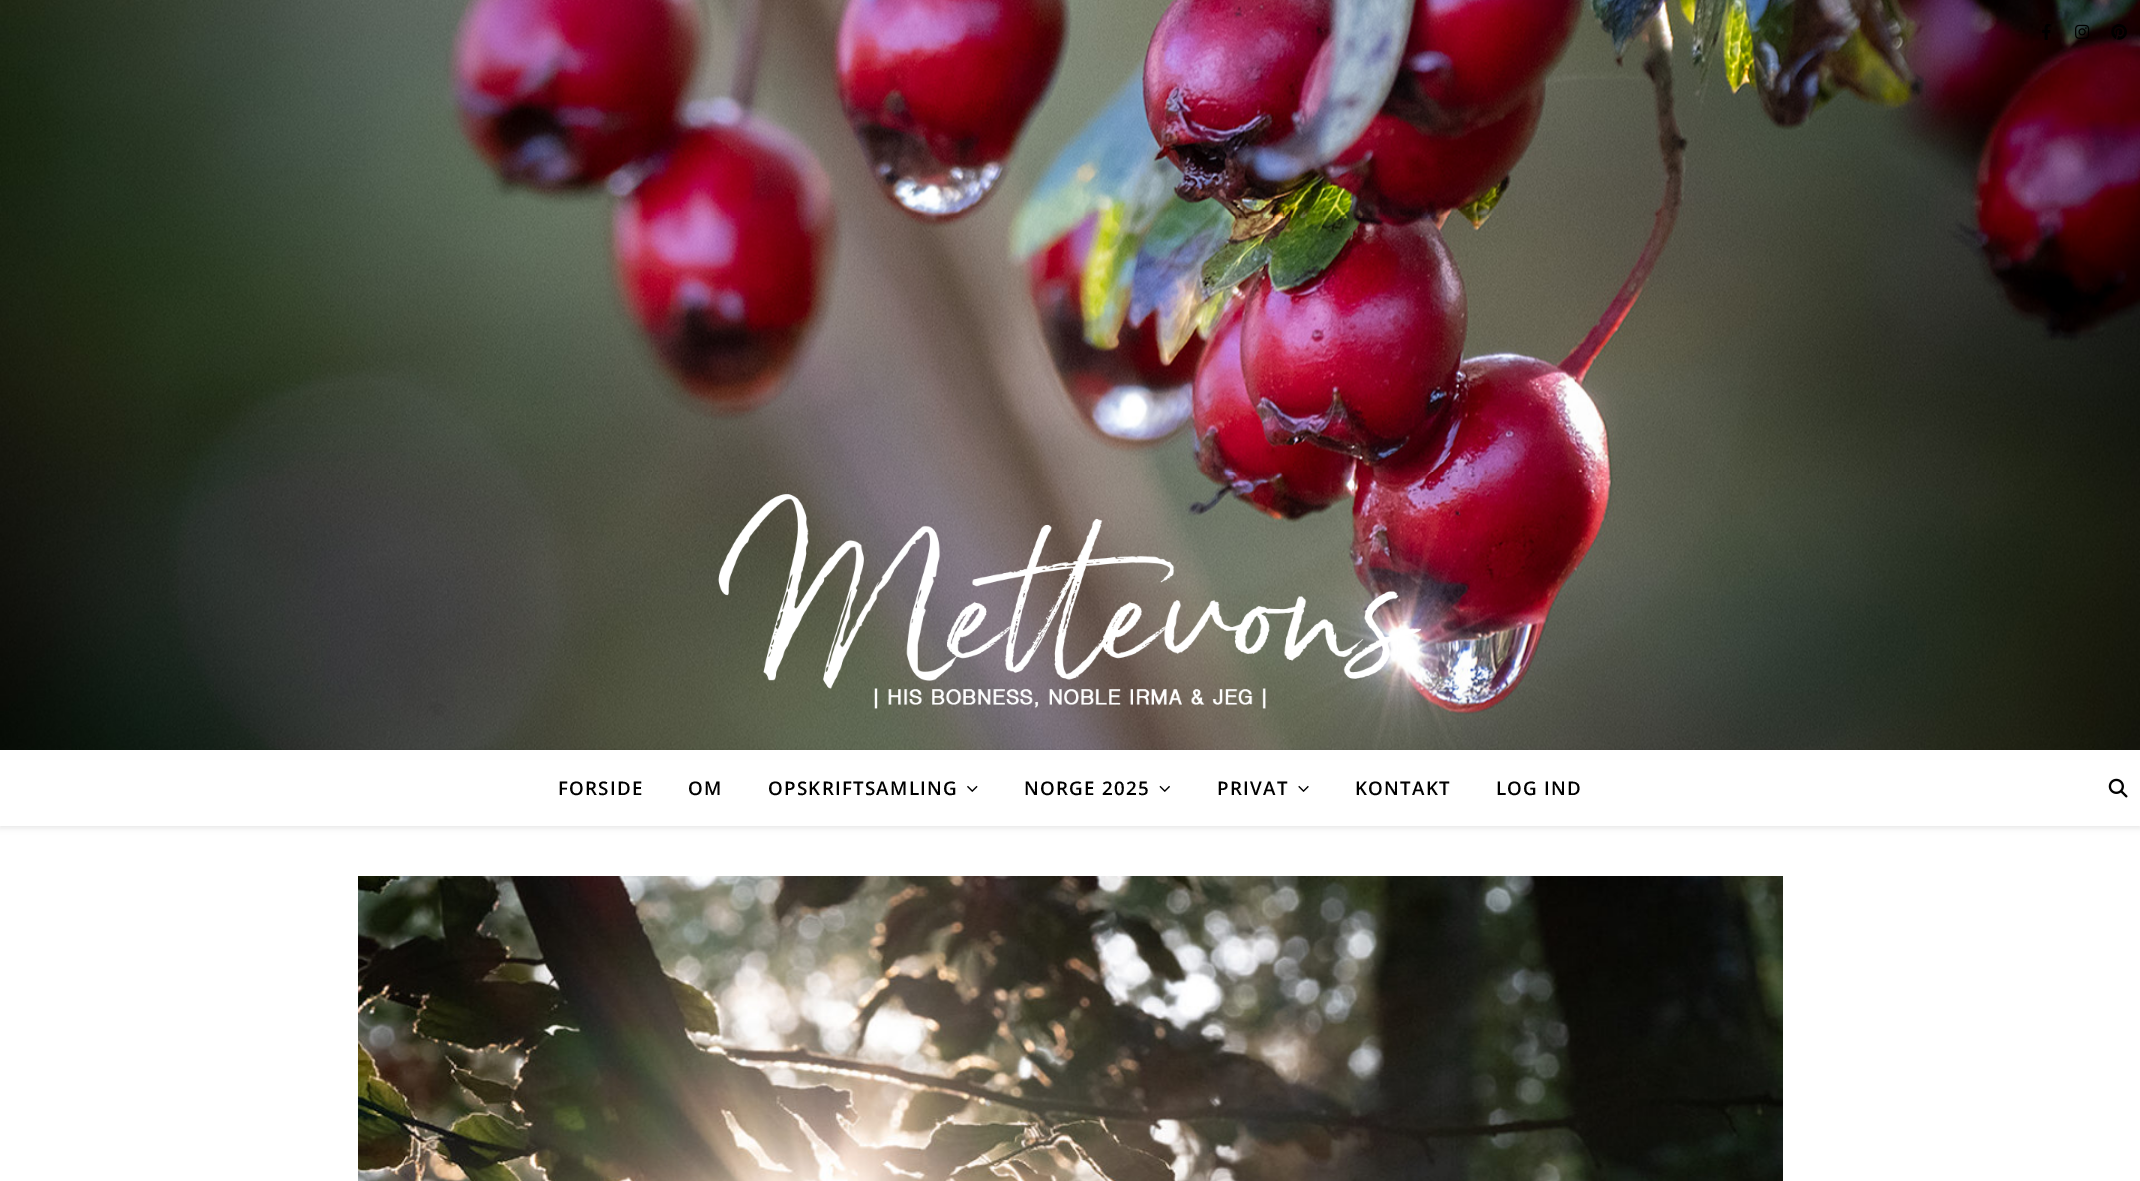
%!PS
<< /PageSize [2140 1181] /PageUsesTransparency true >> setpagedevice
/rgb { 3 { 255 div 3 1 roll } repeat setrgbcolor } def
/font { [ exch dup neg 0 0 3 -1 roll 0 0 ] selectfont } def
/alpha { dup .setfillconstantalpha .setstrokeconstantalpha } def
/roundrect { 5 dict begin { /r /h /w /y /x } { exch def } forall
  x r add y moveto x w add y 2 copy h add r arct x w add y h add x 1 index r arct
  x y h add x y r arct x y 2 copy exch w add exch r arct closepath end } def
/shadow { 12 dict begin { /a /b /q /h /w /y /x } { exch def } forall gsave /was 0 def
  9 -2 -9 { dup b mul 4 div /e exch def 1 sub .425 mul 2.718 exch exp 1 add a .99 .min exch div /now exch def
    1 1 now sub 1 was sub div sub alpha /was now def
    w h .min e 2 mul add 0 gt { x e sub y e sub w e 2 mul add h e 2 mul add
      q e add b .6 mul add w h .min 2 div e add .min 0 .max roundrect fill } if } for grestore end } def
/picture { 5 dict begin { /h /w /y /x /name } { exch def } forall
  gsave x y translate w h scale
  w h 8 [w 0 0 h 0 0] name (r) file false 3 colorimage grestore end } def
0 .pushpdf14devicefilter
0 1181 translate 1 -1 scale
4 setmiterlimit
255 255 255 rgb
0 0 2140 1181 rectfill
(img_01.rgb) 0 0 2140 750 picture
(img_02.rgb) 2042 24 9 16 picture
(img_03.rgb) 2075 24 15 15 picture
(img_04.rgb) 2111 24 16 16 picture
(img_05.rgb) 718 493 703 216 picture
gsave
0 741 moveto 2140 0 rlineto 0 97 rlineto -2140 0 rlineto closepath 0 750 moveto 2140 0 rlineto 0 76 rlineto -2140 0 rlineto closepath eoclip newpath
0 0 0 rgb
0 751 2140 77 0 3 0.1 shadow
grestore
(img_06.rgb) 967 785 11 7 picture
(img_07.rgb) 1159 785 11 7 picture
(img_08.rgb) 1298 785 11 7 picture
(img_09.rgb) 2108 778 20 20 picture
(img_10.rgb) 358 876 1425 305 picture
/OpenSans-SemiBold 18.75 font
0 0 0 rgb
558 795 moveto 1.25 0 (FORSIDE) ashow
688 795 moveto 1.25 0 (OM) ashow
768 795 moveto 1.25 0 (OPSKRIFTSAMLING) ashow
1024 795 moveto 1.25 0 (NORGE 2025) ashow
1217 795 moveto 1.25 0 (PRIVAT) ashow
1355 795 moveto 1.25 0 (KONTAKT) ashow
1496 795 moveto 1.25 0 (LOG IND) ashow
.poppdf14devicefilter showpage
